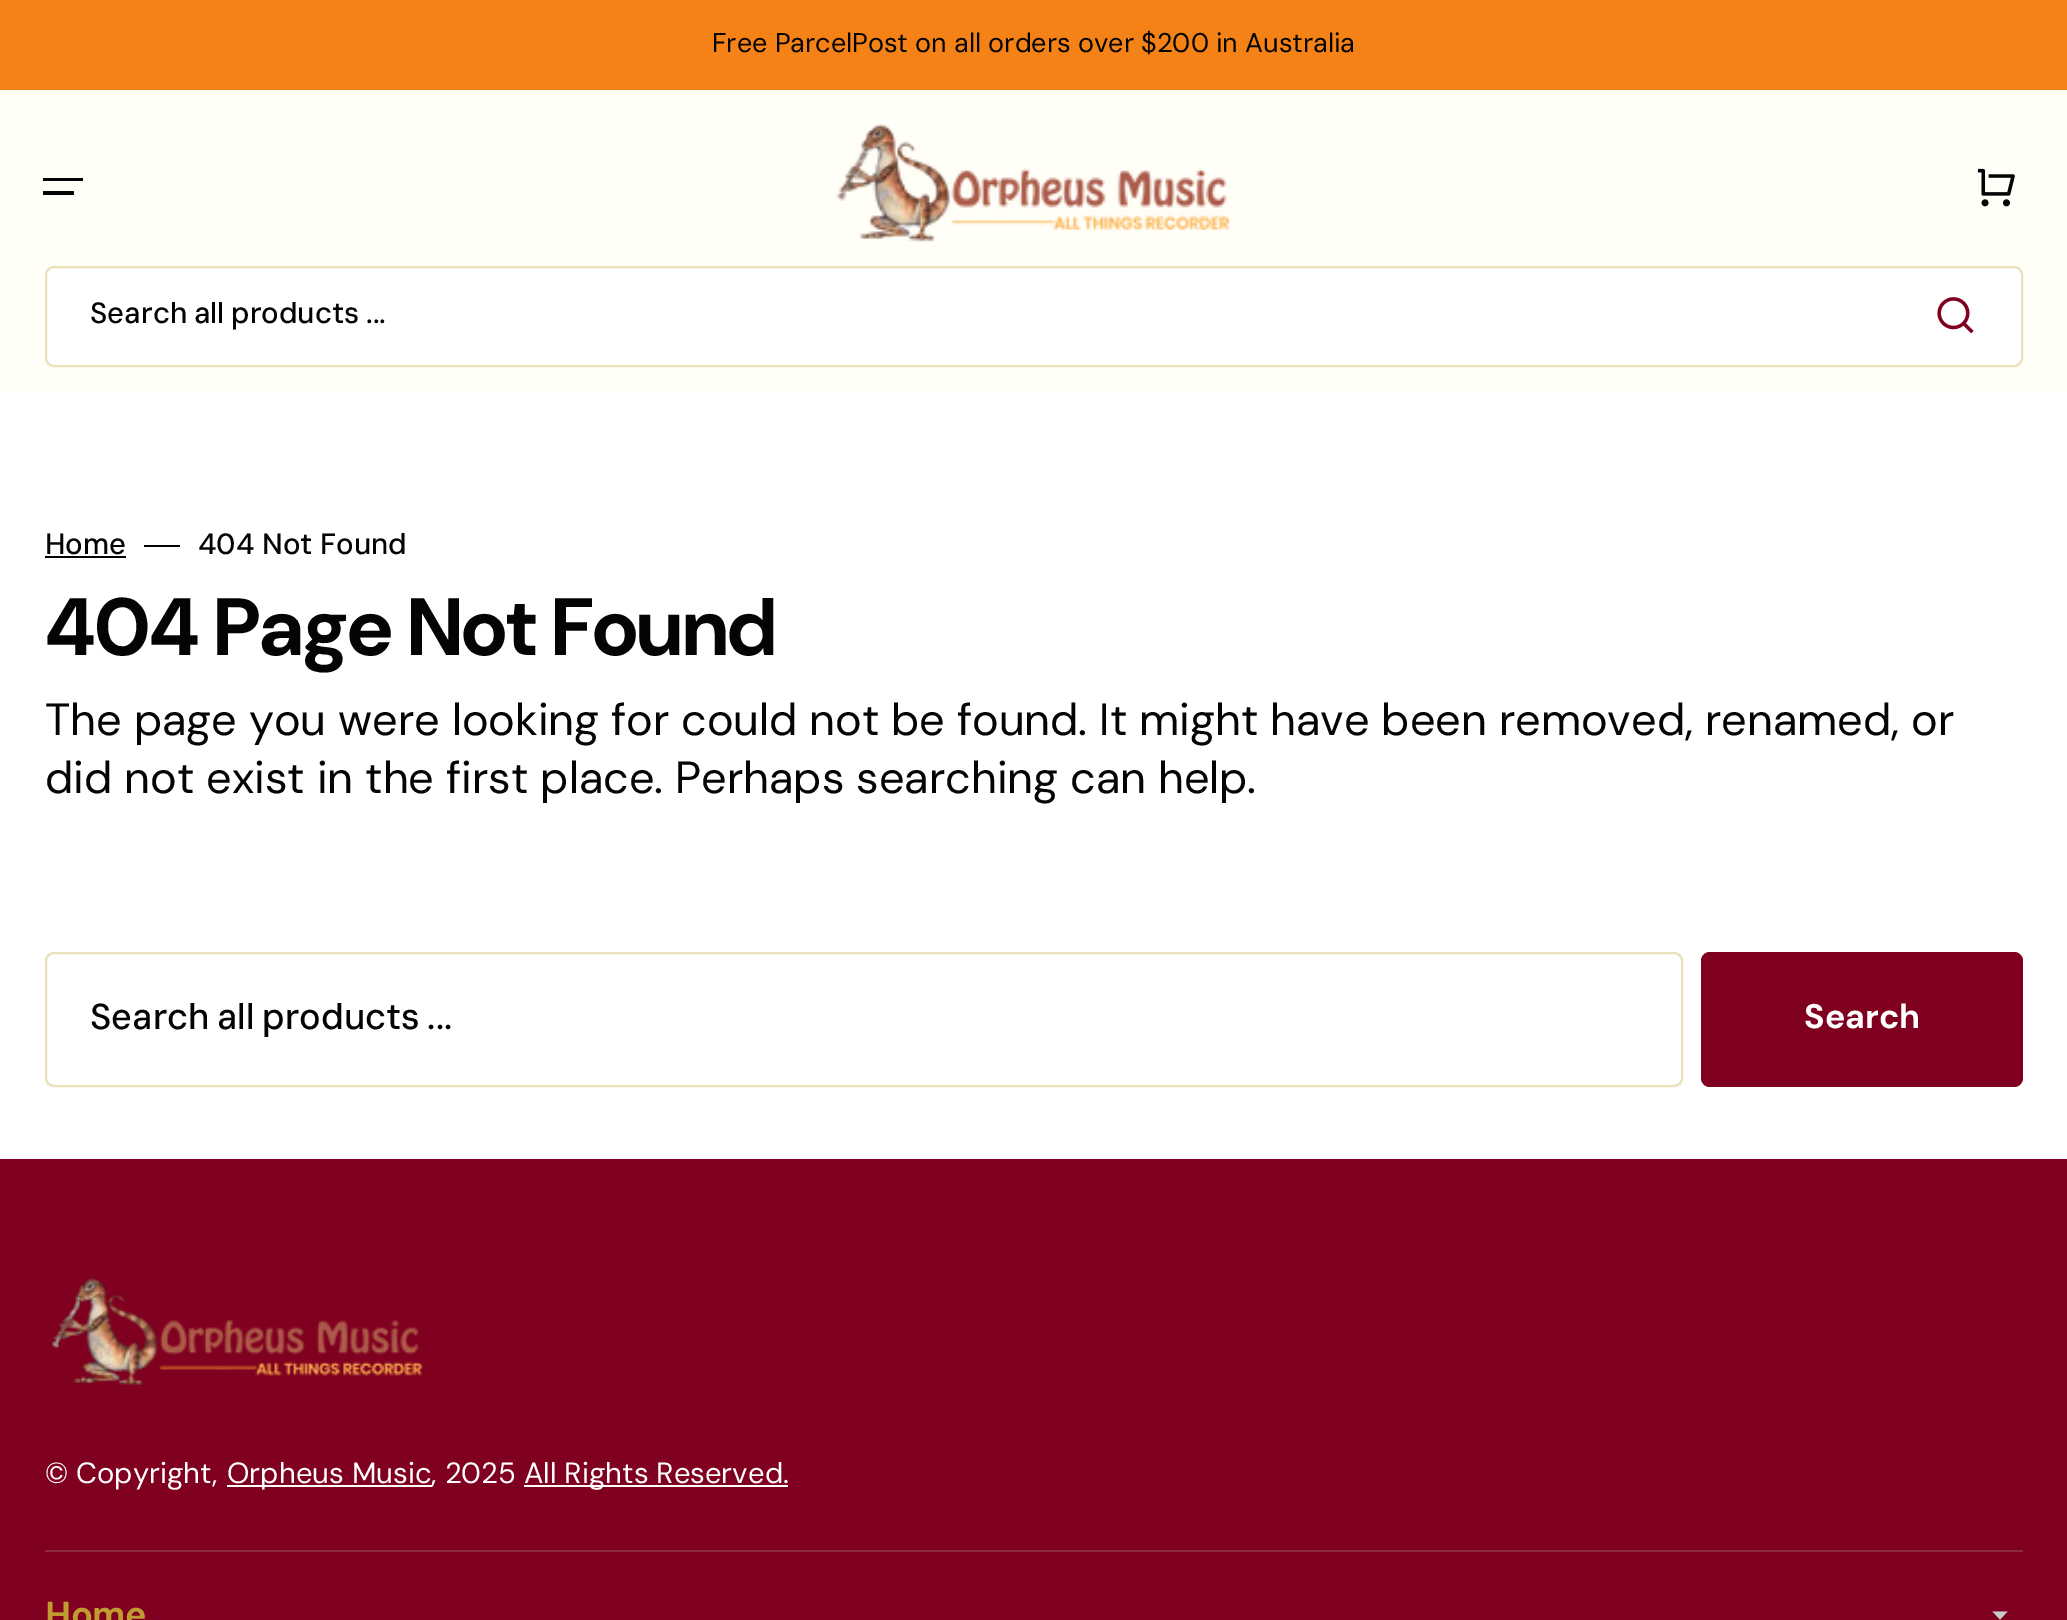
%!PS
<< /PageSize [2067 1620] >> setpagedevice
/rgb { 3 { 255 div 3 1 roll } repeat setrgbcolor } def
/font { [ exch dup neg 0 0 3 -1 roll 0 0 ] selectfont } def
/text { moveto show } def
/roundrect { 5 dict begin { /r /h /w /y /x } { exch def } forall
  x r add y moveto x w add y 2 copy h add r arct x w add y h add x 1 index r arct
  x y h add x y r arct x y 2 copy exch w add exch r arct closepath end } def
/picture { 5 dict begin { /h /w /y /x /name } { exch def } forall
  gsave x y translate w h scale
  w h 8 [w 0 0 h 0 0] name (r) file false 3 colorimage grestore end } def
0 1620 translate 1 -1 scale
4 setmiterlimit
255 255 255 rgb
0 0 2067 1620 rectfill
245 130 22 rgb
0 0 2067 90 rectfill
255 254 247 rgb
0 90 2067 302 rectfill
4 4 4 rgb
43 178 40 3 rectfill
43 191 31 4 rectfill
(img_01.rgb) 836 123 395 119 picture
(img_02.rgb) 1977 168 38 39 picture
255 255 255 rgb
46 267 1976 99 8 roundrect gsave fill grestore
236 224 187 rgb
2 setlinewidth
stroke
(img_03.rgb) 1937 297 37 37 picture
0 0 0 rgb
45 556 81 2 rectfill
144 545 36 2 rectfill
236 224 187 rgb
46 953 1636 133 8 roundrect stroke
128 0 32 rgb
1701 952 322 135 9 roundrect fill
0 1159 2067 461 rectfill
(img_04.rgb) 51 1278 372 107 picture
255 255 255 rgb
227 1485 205 2 rectfill
524 1485 264 2 rectfill
143 41 66 rgb
45 1550 1978 2 rectfill
204 204 204 rgb
2000 1619.5 moveto -7.5 -8 rlineto 15 0 rlineto closepath fill
/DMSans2-Regular 27 font
4 4 4 rgb
(Free ParcelPost on all orders over $200 in Australia) 712 52 text
/DMSans-Medium 29.25 font
90 323 moveto -1 0 32 (Search all products ...) widthshow
(Home) 45 554 text
(404 Not Found) 198 554 text
/DMSans-Bold 81 font
45 655 moveto -1.6 0 (404 Page Not Found) ashow
/DMSans-Regular 45 font
(The page you were looking for could not be found. It might have been removed, renamed, or) 45 735 text
(did not exist in the first place. Perhaps searching can help.) 45 793 text
/DMSans-Medium 36 font
90 1029 moveto -2 0 32 (Search all products ...) widthshow
/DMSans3-Bold 34 font
255 255 255 rgb
(Search) 1804 1028 text
/DMSans3-Regular 29.25 font
(© Copyright,) 45 1483 text
(Orpheus Music, 2025) 227 1483 text
(All Rights Reserved.) 524 1483 text
/DMSans2-Bold 36 font
191 155 48 rgb
45 1627 moveto -0.5 0 (Home) ashow
showpage
